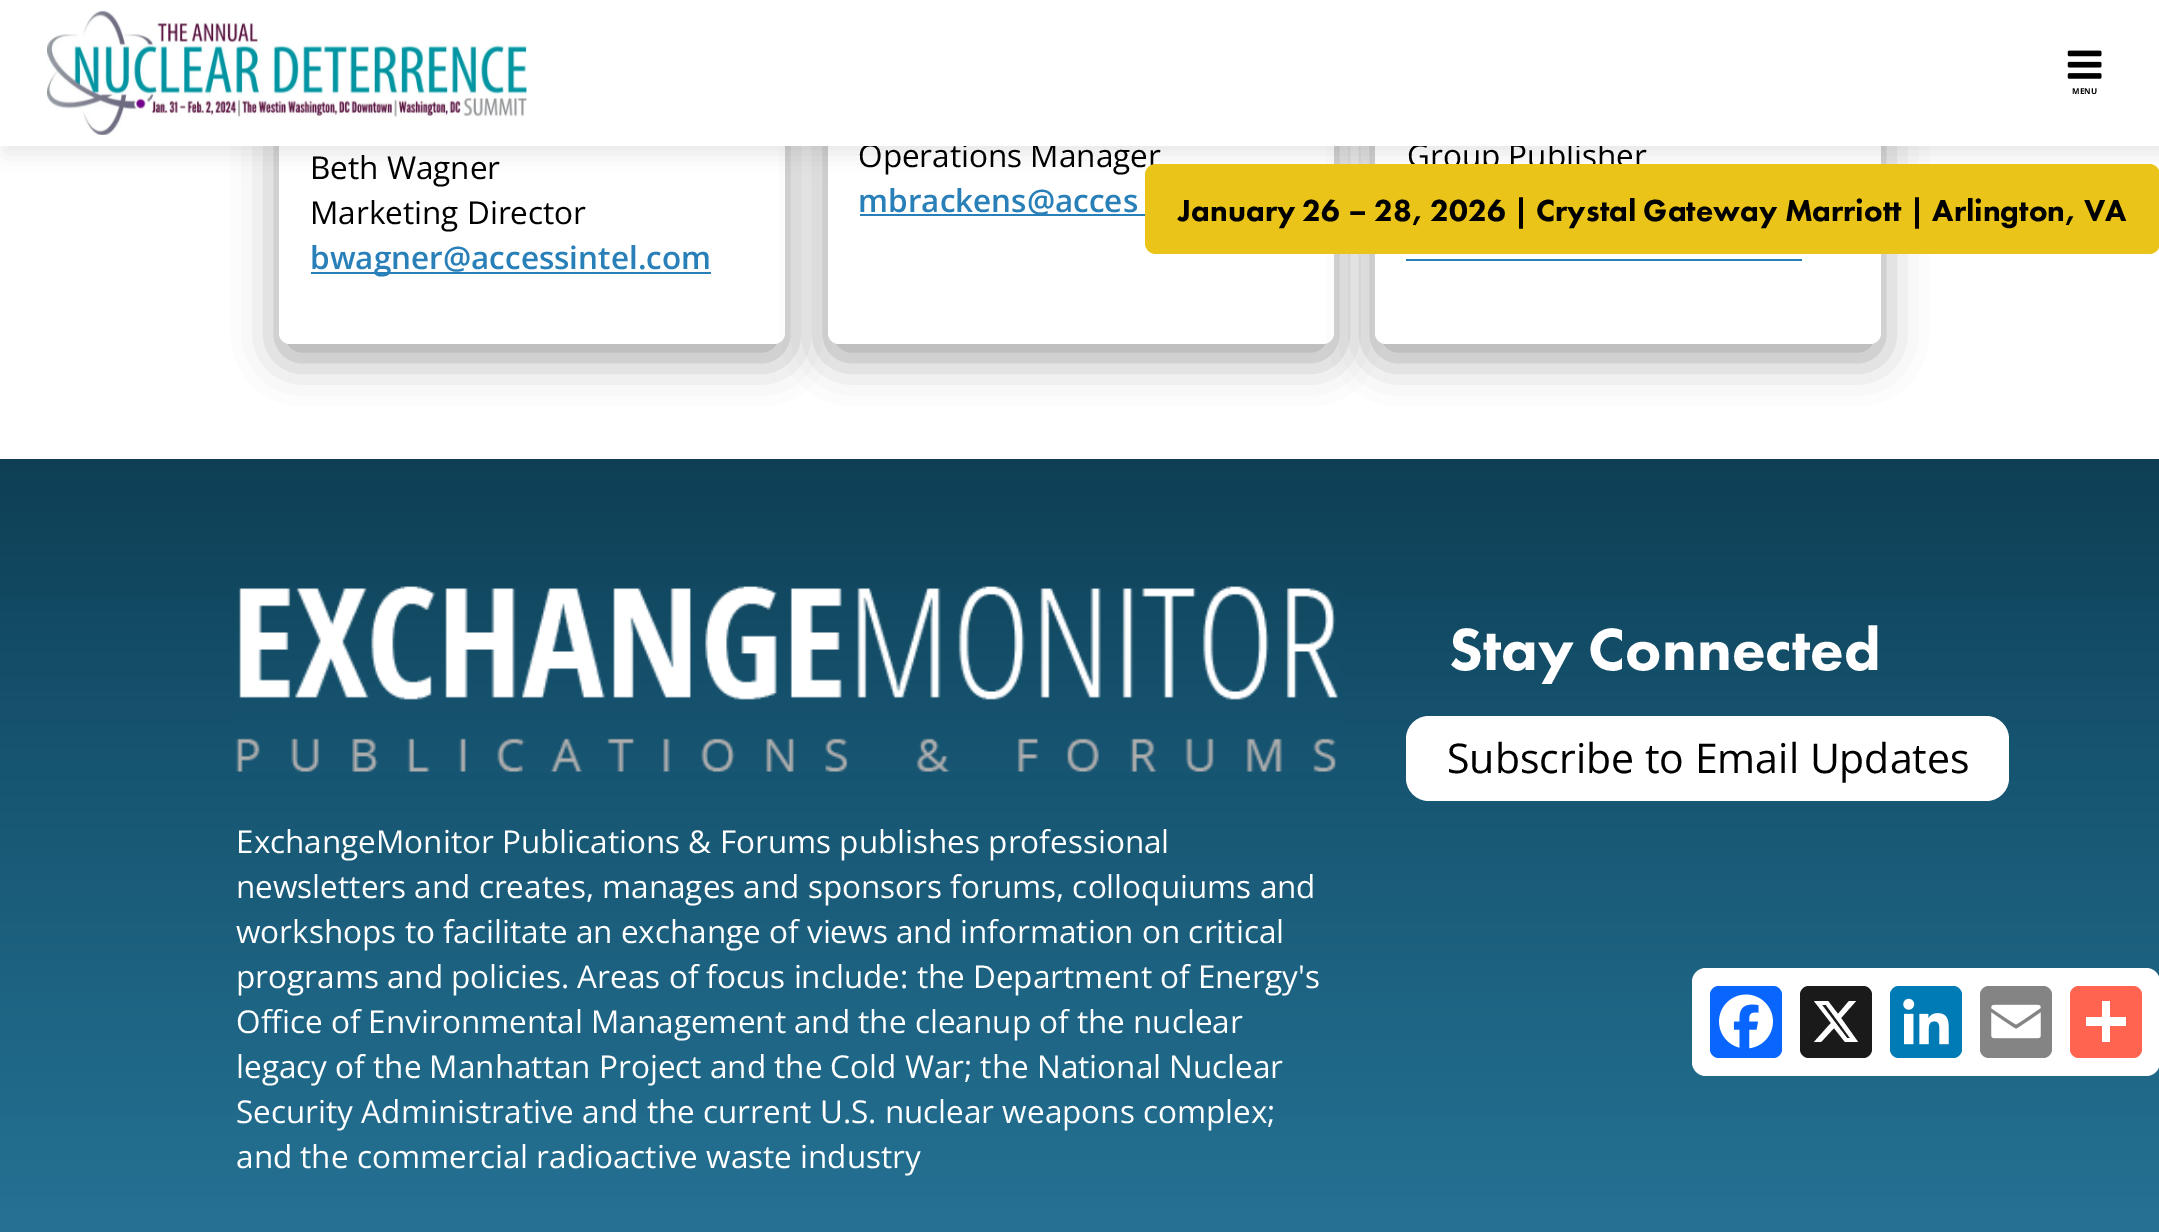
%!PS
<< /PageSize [2159 1232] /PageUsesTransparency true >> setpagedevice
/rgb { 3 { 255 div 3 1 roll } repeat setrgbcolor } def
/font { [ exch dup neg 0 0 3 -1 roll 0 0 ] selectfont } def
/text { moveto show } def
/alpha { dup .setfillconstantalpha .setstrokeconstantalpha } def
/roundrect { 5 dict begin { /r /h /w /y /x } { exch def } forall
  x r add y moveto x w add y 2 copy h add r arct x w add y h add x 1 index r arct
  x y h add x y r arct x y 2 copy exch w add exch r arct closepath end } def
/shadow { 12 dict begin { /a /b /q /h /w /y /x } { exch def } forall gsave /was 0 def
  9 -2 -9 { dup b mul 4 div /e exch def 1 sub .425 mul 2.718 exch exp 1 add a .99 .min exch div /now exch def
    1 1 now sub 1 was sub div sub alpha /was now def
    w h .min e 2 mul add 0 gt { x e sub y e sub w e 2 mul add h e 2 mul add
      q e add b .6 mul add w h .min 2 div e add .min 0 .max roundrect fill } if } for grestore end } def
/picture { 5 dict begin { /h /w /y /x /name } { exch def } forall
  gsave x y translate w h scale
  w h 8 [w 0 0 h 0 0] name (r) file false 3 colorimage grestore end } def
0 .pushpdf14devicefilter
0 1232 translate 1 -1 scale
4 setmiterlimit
255 255 255 rgb
0 0 2159 1232 rectfill
0 0 0 rgb
279 -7 506 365 11 21.5 0.35 shadow
255 255 255 rgb
279 -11 506 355 11 roundrect fill
41 128 185 rgb
311 272 400 2 rectfill
0 0 0 rgb
828 -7 506 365 11 21.5 0.35 shadow
255 255 255 rgb
828 -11 506 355 11 roundrect fill
41 128 185 rgb
860 214 285 2 rectfill
0 0 0 rgb
1375 -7 506 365 11 21.5 0.35 shadow
255 255 255 rgb
1375 -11 506 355 11 roundrect fill
41 128 185 rgb
1406 259 396 2 rectfill
0 0 0 rgb
5 7 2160 146 0 11 0.1 shadow
gsave 0 459 moveto 2159 0 rlineto 0 773 rlineto -2159 0 rlineto closepath clip newpath
<< /ShadingType 2 /ColorSpace /DeviceRGB /Coords [1080 459 1080 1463] /Extend [true true] /Function << /FunctionType 3 /Domain [0 1] /Functions [<< /FunctionType 2 /Domain [0 1] /C0 [0.055 0.247 0.333] /C1 [0.082 0.318 0.427] /N 1 >> << /FunctionType 2 /Domain [0 1] /C0 [0.082 0.318 0.427] /C1 [0.129 0.416 0.545] /N 1 >> << /FunctionType 2 /Domain [0 1] /C0 [0.129 0.416 0.545] /C1 [0.192 0.51 0.659] /N 1 >>] /Bounds [0.25 0.65] /Encode [0 1 0 1 0 1] >> >> shfill grestore
255 255 255 rgb
1406 716 603 85 23 roundrect fill
(img_03.rgb) 236 586 1103 186 picture
1692 968 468 108 14 roundrect fill
8 102 255 rgb
1710 986 72 72 9 roundrect fill
(img_04.rgb) 1719 994 54 55 picture
26 26 26 rgb
1800 986 72 72 9 roundrect fill
255 255 255 rgb
1849 1001 moveto 7 0 rlineto -15 17 rlineto 17 24 rlineto -13 0 rlineto -11 -14 rlineto -13 14 rlineto -7 0 rlineto 17 -19 rlineto -17 -22 rlineto 14 0 rlineto 10 13 rlineto closepath 1847 1038 moveto 3 0 rlineto -24 -33 rlineto -4 0 rlineto closepath fill
0 123 181 rgb
1890 986 72 72 9 roundrect fill
(img_05.rgb) 1903 998 46 47 picture
132 132 132 rgb
1980 986 72 72 9 roundrect fill
(img_06.rgb) 1991 1004 50 35 picture
255 100 80 rgb
2070 986 72 72 9 roundrect fill
255 255 255 rgb
2102 1001 8 41 rectfill
2086 1017 40 9 rectfill
/OpenSans-Regular 31.5 font
0 0 0 rgb
(Beth Wagner) 310 179 text
(Marketing Director) 310 224 text
/OpenSans-SemiBold 31.5 font
41 128 185 rgb
(bwagner@accessintel.com) 310 269 text
/OpenSans-Regular 31.5 font
0 0 0 rgb
(Operations Manager) 858 167 text
/OpenSans-SemiBold 31.5 font
41 128 185 rgb
(mbrackens@acces) 858 212 text
/OpenSans-Regular 31.5 font
0 0 0 rgb
(Group Publisher) 1407 167 text
255 255 255 rgb
0 0 2159 146 rectfill
(img_01.rgb) 47 10 480 125 picture
(img_02.rgb) 2067 50 35 29 picture
/OpenSans-Bold 8 font
0 0 0 rgb
(MENU) 2072 94 text
234 196 25 rgb
1145 164 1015 90 11 roundrect fill
/FuturaPT-Black 31.5 font
0 0 0 rgb
(January 26 – 28, 2026 | Crystal Gateway Marriott | Arlington, VA) 1178 221 text
/FuturaPT-Black 61.5 font
255 255 255 rgb
(Stay Connected) 1449 670 text
/OpenSans-Regular 41 font
0 0 0 rgb
(Subscribe to Email Updates) 1447 773 text
/OpenSans-Regular 31.5 font
255 255 255 rgb
(ExchangeMonitor Publications & Forums publishes professional) 236 853 text
(newsletters and creates, manages and sponsors forums, colloquiums and) 236 898 text
(workshops to facilitate an exchange of views and information on critical) 236 943 text
(programs and policies. Areas of focus include: the Department of Energy's) 236 988 text
(Office of Environmental Management and the cleanup of the nuclear) 236 1033 text
(legacy of the Manhattan Project and the Cold War; the National Nuclear) 236 1078 text
(Security Administrative and the current U.S. nuclear weapons complex;) 236 1123 text
(and the commercial radioactive waste industry) 236 1168 text
.poppdf14devicefilter showpage
